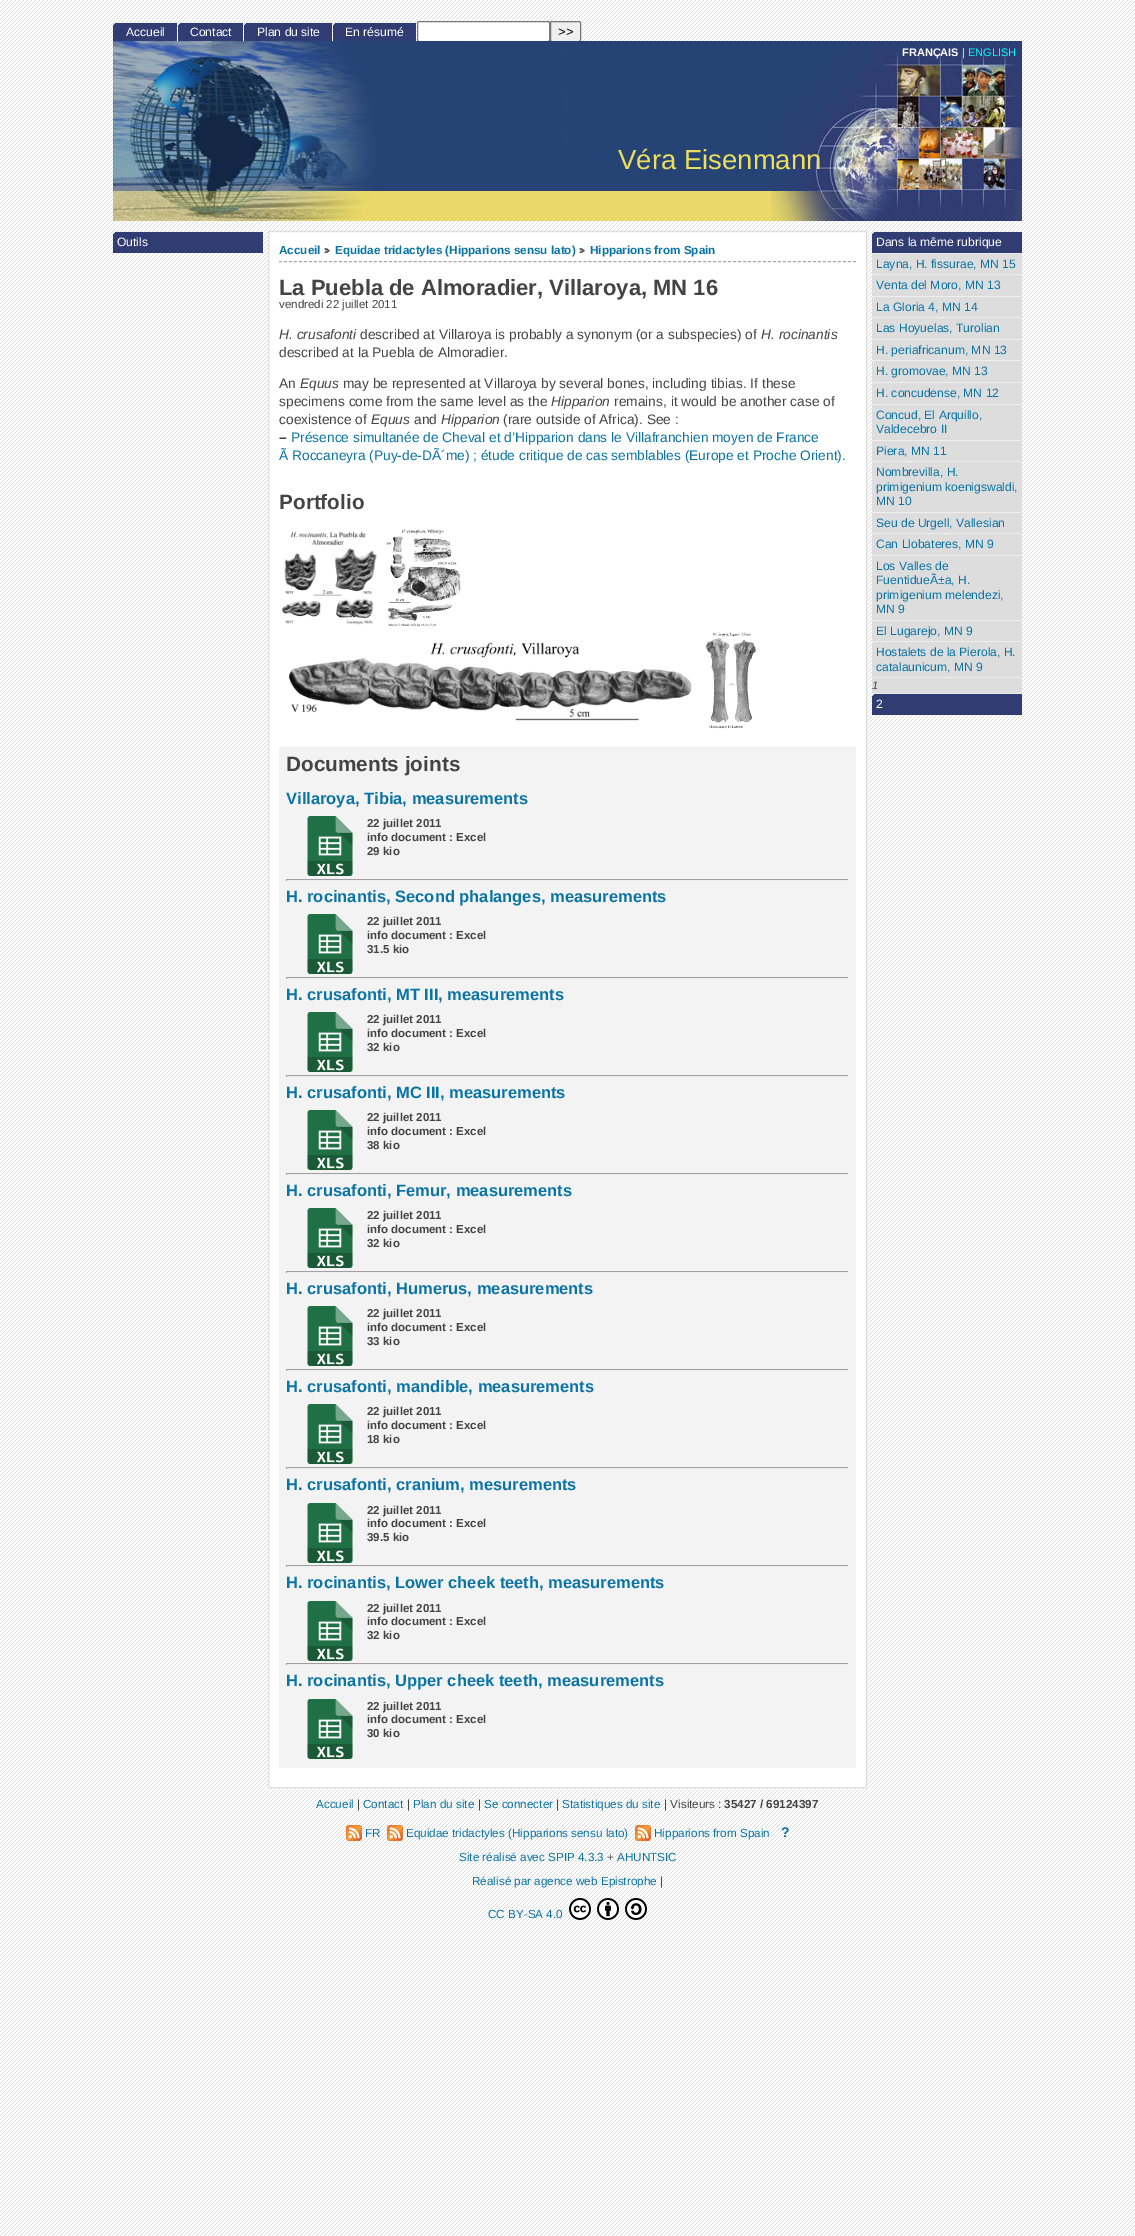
%!PS
<< /PageSize [1135 2236] >> setpagedevice
/rgb { 3 { 255 div 3 1 roll } repeat setrgbcolor } def
/font { [ exch dup neg 0 0 3 -1 roll 0 0 ] selectfont } def
/text { moveto show } def
/roundrect { 5 dict begin { /r /h /w /y /x } { exch def } forall
  x r add y moveto x w add y 2 copy h add r arct x w add y h add x 1 index r arct
  x y h add x y r arct x y 2 copy exch w add exch r arct closepath end } def
/picture { 5 dict begin { /h /w /y /x /name } { exch def } forall
  gsave x y translate w h scale
  w h 8 [w 0 0 h 0 0] name (r) file false 3 colorimage grestore end } def
0 2236 translate 1 -1 scale
4 setmiterlimit
221 221 221 rgb
0 0 1135 2236 rectfill
(img_01.rgb) 0 0 1135 2236 picture
238 238 238 rgb
113 22 497 1 rectfill
49 60 114 rgb
113 23 64 18 rectfill
(img_02.rgb) 113 23 2 2 picture
178 23 65 18 rectfill
(img_02.rgb) 178 23 2 2 picture
244 23 88 18 rectfill
(img_02.rgb) 244 23 2 2 picture
333 23 83 18 rectfill
(img_02.rgb) 333 23 2 2 picture
255 255 255 rgb
417.5 21.5 132 20 1.5 roundrect gsave fill grestore
118 118 118 rgb
stroke
239 239 239 rgb
550.5 21.5 30 20 1.5 roundrect gsave fill grestore
118 118 118 rgb
stroke
238 238 238 rgb
113 231 150 1 rectfill
49 60 114 rgb
113 232 150 21 rectfill
(img_02.rgb) 113 232 2 2 picture
(img_03.rgb) 113 41 658 180 picture
(img_04.rgb) 771 41 251 180 picture
255 255 255 rgb
268.5 231.5 moveto 598 0 rlineto 0 1556 rlineto -598 0 rlineto closepath gsave fill grestore
222 222 222 rgb
stroke
167 167 167 rgb
325 248 3 5 rectfill
580 248 3 5 rectfill
170 170 170 rgb
[3 1.99] 0 setdash
279 261.5 moveto 577 0 rlineto stroke
(img_05.rgb) 281 531 96 94 picture
(img_06.rgb) 387 529 74 98 picture
(img_07.rgb) 288 642 404 83 picture
(img_08.rgb) 705 632 51 97 picture
243 243 243 rgb
279 747 577 1021 rectfill
(img_09.rgb) 307 816 46 60 picture
159 159 159 rgb
286 879 563 1 rectfill
238 238 238 rgb
848 879 1 2 rectfill
286 880 563 1 rectfill
159 159 159 rgb
286 879 1 2 rectfill
(img_09.rgb) 307 914 46 60 picture
286 977 563 1 rectfill
238 238 238 rgb
848 977 1 2 rectfill
286 978 563 1 rectfill
159 159 159 rgb
286 977 1 2 rectfill
(img_09.rgb) 307 1012 46 60 picture
286 1075 563 1 rectfill
238 238 238 rgb
848 1075 1 2 rectfill
286 1076 563 1 rectfill
159 159 159 rgb
286 1075 1 2 rectfill
(img_09.rgb) 307 1110 46 60 picture
286 1173 563 1 rectfill
238 238 238 rgb
848 1173 1 2 rectfill
286 1174 563 1 rectfill
159 159 159 rgb
286 1173 1 2 rectfill
(img_09.rgb) 307 1208 46 60 picture
286 1271 563 1 rectfill
238 238 238 rgb
848 1271 1 2 rectfill
286 1272 563 1 rectfill
159 159 159 rgb
286 1271 1 2 rectfill
(img_09.rgb) 307 1306 46 60 picture
286 1369 563 1 rectfill
238 238 238 rgb
848 1369 1 2 rectfill
286 1370 563 1 rectfill
159 159 159 rgb
286 1369 1 2 rectfill
(img_09.rgb) 307 1404 46 60 picture
286 1467 563 1 rectfill
238 238 238 rgb
848 1467 1 2 rectfill
286 1468 563 1 rectfill
159 159 159 rgb
286 1467 1 2 rectfill
(img_09.rgb) 307 1503 46 60 picture
286 1565 563 1 rectfill
238 238 238 rgb
848 1565 1 2 rectfill
286 1566 563 1 rectfill
159 159 159 rgb
286 1565 1 2 rectfill
(img_09.rgb) 307 1601 46 60 picture
286 1663 563 1 rectfill
238 238 238 rgb
848 1663 1 2 rectfill
286 1664 563 1 rectfill
159 159 159 rgb
286 1663 1 2 rectfill
(img_09.rgb) 307 1699 46 60 picture
238 238 238 rgb
872 231 150 1 rectfill
49 60 114 rgb
872 232 150 21 rectfill
(img_02.rgb) 872 232 2 2 picture
238 238 238 rgb
872 253 150 1 rectfill
221 221 221 rgb
872 254 150 20 rectfill
(img_10.rgb) 872 254 2 2 picture
238 238 238 rgb
872 274 150 1 rectfill
221 221 221 rgb
872 275 150 21 rectfill
(img_10.rgb) 872 275 2 2 picture
238 238 238 rgb
872 296 150 1 rectfill
221 221 221 rgb
872 297 150 20 rectfill
(img_10.rgb) 872 297 2 2 picture
238 238 238 rgb
872 317 150 1 rectfill
221 221 221 rgb
872 318 150 21 rectfill
(img_10.rgb) 872 318 2 2 picture
238 238 238 rgb
872 339 150 1 rectfill
221 221 221 rgb
872 340 150 20 rectfill
(img_10.rgb) 872 340 2 2 picture
238 238 238 rgb
872 360 150 1 rectfill
221 221 221 rgb
872 361 150 21 rectfill
(img_10.rgb) 872 361 2 2 picture
238 238 238 rgb
872 382 150 1 rectfill
221 221 221 rgb
872 383 150 21 rectfill
(img_10.rgb) 872 383 2 2 picture
238 238 238 rgb
872 404 150 1 rectfill
221 221 221 rgb
872 405 150 35 rectfill
(img_10.rgb) 872 405 2 2 picture
238 238 238 rgb
872 440 150 1 rectfill
221 221 221 rgb
872 441 150 20 rectfill
(img_10.rgb) 872 441 2 2 picture
238 238 238 rgb
872 461 150 1 rectfill
221 221 221 rgb
872 462 150 50 rectfill
(img_10.rgb) 872 462 2 2 picture
238 238 238 rgb
872 512 150 1 rectfill
221 221 221 rgb
872 513 150 20 rectfill
(img_10.rgb) 872 513 2 2 picture
238 238 238 rgb
872 533 150 1 rectfill
221 221 221 rgb
872 534 150 21 rectfill
(img_10.rgb) 872 534 2 2 picture
238 238 238 rgb
872 555 150 1 rectfill
221 221 221 rgb
872 556 150 64 rectfill
(img_10.rgb) 872 556 2 2 picture
238 238 238 rgb
872 620 150 1 rectfill
221 221 221 rgb
872 621 150 20 rectfill
(img_10.rgb) 872 621 2 2 picture
238 238 238 rgb
872 641 150 1 rectfill
221 221 221 rgb
872 642 150 35 rectfill
(img_10.rgb) 872 642 2 2 picture
238 238 238 rgb
872 677 150 1 rectfill
221 221 221 rgb
872 678 150 15 rectfill
238 238 238 rgb
872 693 150 1 rectfill
49 60 114 rgb
872 694 150 21 rectfill
(img_02.rgb) 872 694 2 2 picture
(img_11.rgb) 346 1825 16 16 picture
(img_12.rgb) 387 1825 16 16 picture
(img_12.rgb) 635 1825 16 16 picture
(img_13.rgb) 569 1898 22 22 picture
(img_14.rgb) 597 1898 22 22 picture
(img_15.rgb) 625 1898 22 22 picture
/LiberationSans-Regular 12.1 font
255 255 255 rgb
(Accueil) 126 36 text
(Contact) 190 36 text
(Plan du site) 257 36 text
(En résumé) 345 36 text
/LiberationSans-Regular 13 font
0 0 0 rgb
(>>) 558 36 text
/LiberationSans-Regular 12.1 font
255 255 255 rgb
(Outils) 117 246 text
/LiberationSans-Bold 11 font
(FRANÇAIS) 902 56 text
/LiberationSans-Regular 11 font
(|) 962 56 text
0 255 255 rgb
(ENGLISH) 968 56 text
/LiberationSans-Regular 27.5 font
237 223 92 rgb
(Véra Eisenmann) 618 169 text
/LiberationSans-Bold 11.7 font
10 116 166 rgb
(Accueil) 279 254 text
/LiberationSans-Bold 10 font
68 68 68 rgb
(>) 324 254 text
/LiberationSans-Bold 11.7 font
10 116 166 rgb
(Equidae tridactyles \(Hipparions sensu lato\)) 335 254 text
/LiberationSans-Bold 10 font
68 68 68 rgb
(>) 579 254 text
/LiberationSans-Bold 11.7 font
10 116 166 rgb
(Hipparions from Spain) 590 254 text
/LiberationSans-Bold 22 font
68 68 68 rgb
(La Puebla de Almoradier, Villaroya, MN 16) 279 295 text
/LiberationSans-Regular 11.5 font
(vendredi 22 juillet 2011) 279 308 text
/LiberationSans-Italic 13.75 font
(H. crusafonti) 279 339 text
/LiberationSans-Regular 13.75 font
(described at Villaroya is probably a synonym \(or a subspecies\) of) 360 339 text
/LiberationSans-Italic 13.75 font
(H. rocinantis) 761 339 text
/LiberationSans-Regular 13.75 font
(described at la Puebla de Almoradier.) 279 357 text
(An) 279 388 text
/LiberationSans-Italic 13.75 font
(Equus) 300 388 text
/LiberationSans-Regular 13.75 font
(may be represented at Villaroya by several bones, including tibias. If these) 343 388 text
(specimens come from the same level as the) 279 406 text
/LiberationSans-Italic 13.75 font
(Hipparion) 551 406 text
/LiberationSans-Regular 13.75 font
(remains, it would be another case of) 614 406 text
(coexistence of) 279 424 text
/LiberationSans-Italic 13.75 font
(Equus) 371 424 text
/LiberationSans-Regular 13.75 font
(and) 414 424 text
/LiberationSans-Italic 13.75 font
(Hipparion) 441 424 text
/LiberationSans-Regular 13.75 font
(\(rare outside of Africa\). See :) 503 424 text
/LiberationSans-Bold 13.75 font
(–) 279 442 text
/LiberationSans-Regular 13.75 font
10 116 166 rgb
(Présence simultanée de Cheval et d’Hipparion dans le Villafranchien moyen de France) 291 442 text
(Ã Roccaneyra \(Puy-de-DÃ´me\) ; étude critique de cas semblables \(Europe et Proche Orient\).) 279 460 text
/LiberationSans-Bold 20.75 font
68 68 68 rgb
(Portfolio) 279 509 text
(Documents joints) 286 771 text
/LiberationSans-Bold 16.5 font
10 116 166 rgb
(Villaroya, Tibia, measurements) 286 804 text
/LiberationSans-Bold 11.5 font
68 68 68 rgb
(22 juillet 2011) 367 827 text
(info document : Excel) 367 841 text
(29 kio) 367 855 text
/LiberationSans-Bold 16.5 font
10 116 166 rgb
(H. rocinantis, Second phalanges, measurements) 286 902 text
/LiberationSans-Bold 11.5 font
68 68 68 rgb
(22 juillet 2011) 367 925 text
(info document : Excel) 367 939 text
(31.5 kio) 367 953 text
/LiberationSans-Bold 16.5 font
10 116 166 rgb
(H. crusafonti, MT III, measurements) 286 1000 text
/LiberationSans-Bold 11.5 font
68 68 68 rgb
(22 juillet 2011) 367 1023 text
(info document : Excel) 367 1037 text
(32 kio) 367 1051 text
/LiberationSans-Bold 16.5 font
10 116 166 rgb
(H. crusafonti, MC III, measurements) 286 1098 text
/LiberationSans-Bold 11.5 font
68 68 68 rgb
(22 juillet 2011) 367 1121 text
(info document : Excel) 367 1135 text
(38 kio) 367 1149 text
/LiberationSans-Bold 16.5 font
10 116 166 rgb
(H. crusafonti, Femur, measurements) 286 1196 text
/LiberationSans-Bold 11.5 font
68 68 68 rgb
(22 juillet 2011) 367 1219 text
(info document : Excel) 367 1233 text
(32 kio) 367 1247 text
/LiberationSans-Bold 16.5 font
10 116 166 rgb
(H. crusafonti, Humerus, measurements) 286 1294 text
/LiberationSans-Bold 11.5 font
68 68 68 rgb
(22 juillet 2011) 367 1317 text
(info document : Excel) 367 1331 text
(33 kio) 367 1345 text
/LiberationSans-Bold 16.5 font
10 116 166 rgb
(H. crusafonti, mandible, measurements) 286 1392 text
/LiberationSans-Bold 11.5 font
68 68 68 rgb
(22 juillet 2011) 367 1415 text
(info document : Excel) 367 1429 text
(18 kio) 367 1443 text
/LiberationSans-Bold 16.5 font
10 116 166 rgb
(H. crusafonti, cranium, mesurements) 286 1490 text
/LiberationSans-Bold 11.5 font
68 68 68 rgb
(22 juillet 2011) 367 1514 text
(info document : Excel) 367 1527 text
(39.5 kio) 367 1541 text
/LiberationSans-Bold 16.5 font
10 116 166 rgb
(H. rocinantis, Lower cheek teeth, measurements) 286 1588 text
/LiberationSans-Bold 11.5 font
68 68 68 rgb
(22 juillet 2011) 367 1612 text
(info document : Excel) 367 1625 text
(32 kio) 367 1639 text
/LiberationSans-Bold 16.5 font
10 116 166 rgb
(H. rocinantis, Upper cheek teeth, measurements) 286 1686 text
/LiberationSans-Bold 11.5 font
68 68 68 rgb
(22 juillet 2011) 367 1710 text
(info document : Excel) 367 1723 text
(30 kio) 367 1737 text
/LiberationSans-Regular 12.1 font
255 255 255 rgb
(Dans la même rubrique) 876 246 text
10 116 166 rgb
(Layna, H. fissurae, MN 15) 876 268 text
(Venta del Moro, MN 13) 876 289 text
(La Gloria 4, MN 14) 876 311 text
(Las Hoyuelas, Turolian) 876 332 text
(H. periafricanum, MN 13) 876 354 text
(H. gromovae, MN 13) 876 375 text
(H. concudense, MN 12) 876 397 text
(Concud, El Arquillo,) 876 419 text
(Valdecebro II) 876 433 text
(Piera, MN 11) 876 455 text
(Nombrevilla, H.) 876 476 text
(primigenium koenigswaldi,) 876 491 text
(MN 10) 876 505 text
(Seu de Urgell, Vallesian) 876 527 text
(Can Llobateres, MN 9) 876 548 text
(Los Valles de) 876 570 text
(FuentidueÃ±a, H.) 876 584 text
(primigenium melendezi,) 876 599 text
(MN 9) 876 613 text
(El Lugarejo, MN 9) 876 635 text
(Hostalets de la Pierola, H.) 876 656 text
(catalaunicum, MN 9) 876 671 text
/LiberationSans-Italic 11 font
68 68 68 rgb
(1) 872 689 text
/LiberationSans-Regular 12.1 font
255 255 255 rgb
(2) 876 708 text
/LiberationSans-Regular 11.7 font
10 116 166 rgb
(Accueil) 316 1808 text
68 68 68 rgb
(|) 357 1808 text
10 116 166 rgb
(Contact) 363 1808 text
68 68 68 rgb
(|) 407 1808 text
10 116 166 rgb
(Plan du site) 413 1808 text
68 68 68 rgb
(|) 478 1808 text
10 116 166 rgb
(Se connecter) 484 1808 text
68 68 68 rgb
(|) 556 1808 text
10 116 166 rgb
(Statistiques du site) 562 1808 text
68 68 68 rgb
(| Visiteurs :) 664 1808 text
/LiberationSans-Bold 11.7 font
(35427 / 69124397) 724 1808 text
/LiberationSans-Regular 11.7 font
10 116 166 rgb
(FR) 365 1837 text
(Equidae tridactyles \(Hipparions sensu lato\)) 406 1837 text
(Hipparions from Spain) 654 1837 text
/LiberationSans-Bold 14 font
(?) 781 1837 text
/LiberationSans-Regular 11.7 font
(Site réalisé avec SPIP 4.3.3) 459 1861 text
68 68 68 rgb
(+) 607 1861 text
10 116 166 rgb
(AHUNTSIC) 617 1861 text
(Réalisé par agence web Epistrophe) 472 1885 text
68 68 68 rgb
(|) 660 1885 text
10 116 166 rgb
(CC BY-SA 4.0) 488 1918 text
showpage
